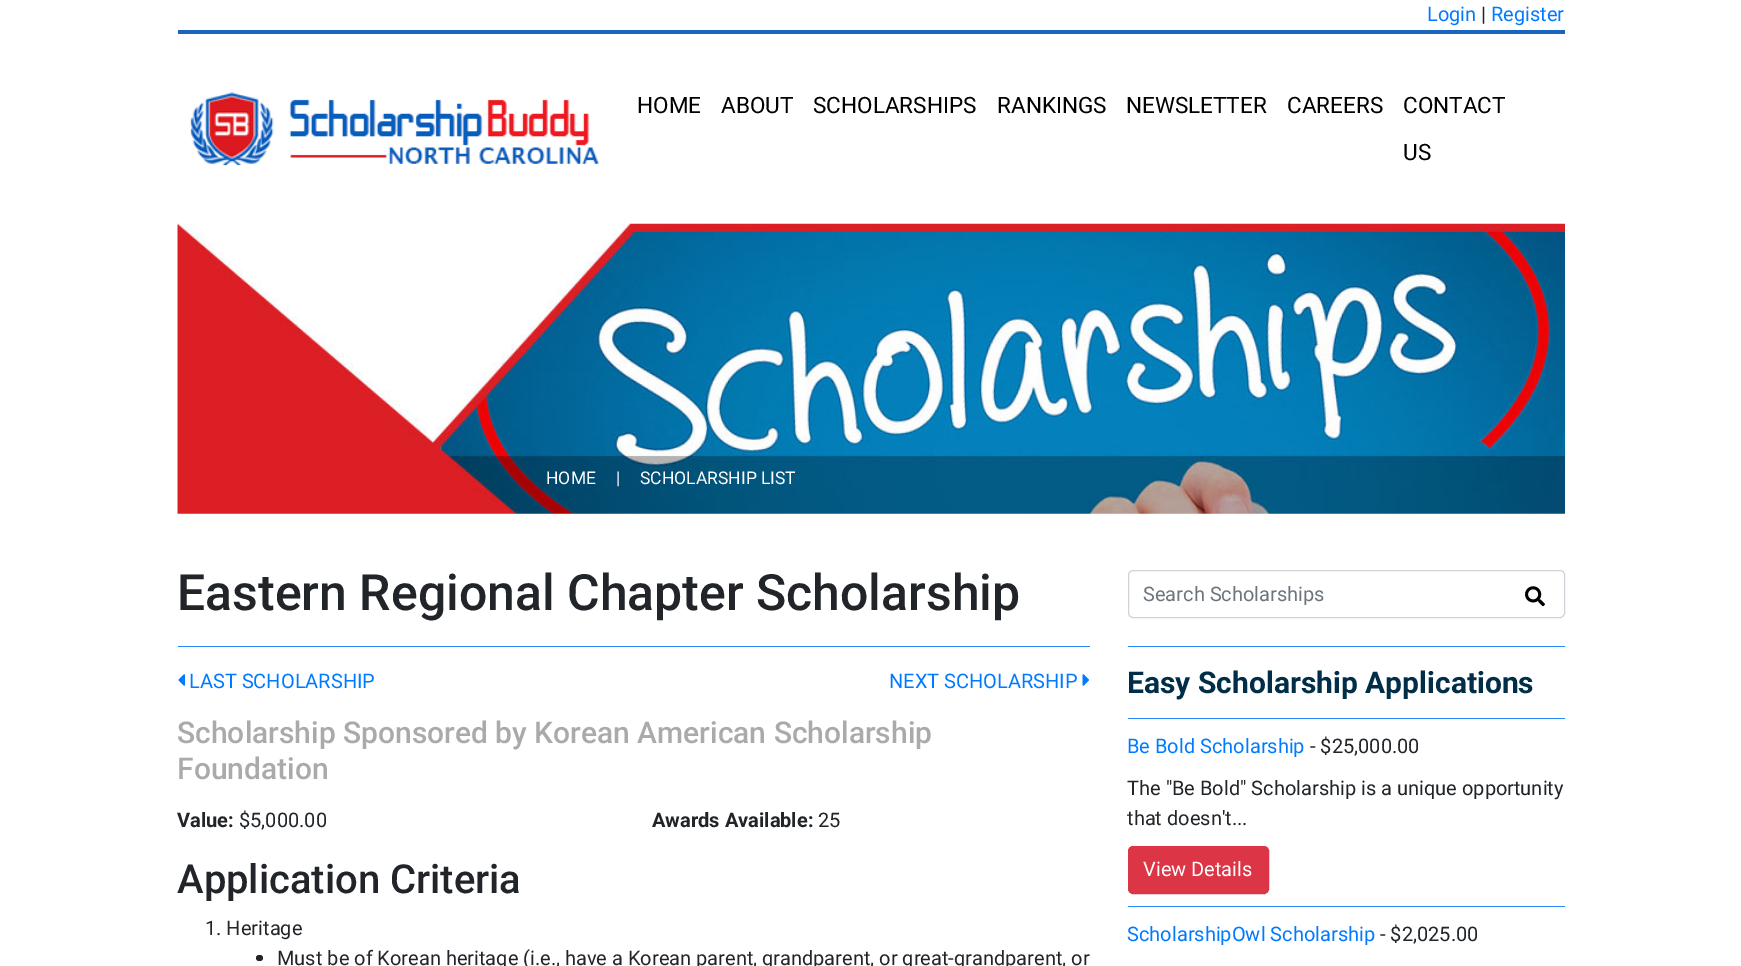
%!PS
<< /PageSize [1741 966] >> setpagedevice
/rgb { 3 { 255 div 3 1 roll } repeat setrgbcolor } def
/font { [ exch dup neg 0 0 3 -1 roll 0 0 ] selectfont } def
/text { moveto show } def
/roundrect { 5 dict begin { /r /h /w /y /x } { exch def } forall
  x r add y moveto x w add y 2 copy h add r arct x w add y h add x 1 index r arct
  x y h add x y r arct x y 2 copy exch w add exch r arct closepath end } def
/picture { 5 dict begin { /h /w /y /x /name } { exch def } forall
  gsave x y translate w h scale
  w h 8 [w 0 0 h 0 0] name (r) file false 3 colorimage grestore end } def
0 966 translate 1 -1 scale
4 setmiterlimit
255 255 255 rgb
0 0 1741 966 rectfill
25 101 190 rgb
178 30 1387 4 rectfill
(img_01.rgb) 190 92 409 74 picture
(img_02.rgb) 177 223 1388 291 picture
206 212 218 rgb
1128.5 570.5 436 47 4.5 roundrect stroke
(img_03.rgb) 1525 586 20 21 picture
39 136 251 rgb
178 646 912 1 rectfill
(img_04.rgb) 178 674 7 12 picture
(img_05.rgb) 1082 674 7 12 picture
33 37 41 rgb
256 955 7 6 3 roundrect fill
39 136 251 rgb
1128 646 437 1 rectfill
1128 718 437 1 rectfill
220 53 69 rgb
1128.5 846.5 140 47 4.5 roundrect gsave fill grestore
stroke
39 136 251 rgb
1128 906 437 1 rectfill
/Roboto-Regular 20 font
0 123 255 rgb
(Login) 1427 21 text
33 37 41 rgb
(|) 1481 21 text
0 123 255 rgb
(Register) 1491 21 text
/Roboto-Regular 22.5 font
0 0 0 rgb
(HOME) 637 113 text
(ABOUT) 721 113 text
(SCHOLARSHIPS) 813 113 text
(RANKINGS) 997 113 text
(NEWSLETTER) 1126 113 text
(CAREERS) 1287 113 text
(CONTACT) 1403 113 text
(US) 1403 160 text
/Roboto-Regular 17.5 font
255 255 255 rgb
(HOME) 546 484 text
(|) 616 484 text
(SCHOLARSHIP LIST) 640 484 text
/Roboto-Medium 50 font
33 37 41 rgb
(Eastern Regional Chapter Scholarship) 177 610 text
/Roboto-Regular 20 font
108 117 125 rgb
(Search Scholarships) 1143 601 text
0 123 255 rgb
(LAST SCHOLARSHIP) 189 688 text
(NEXT SCHOLARSHIP) 889 688 text
/Roboto-Medium 30 font
170 170 170 rgb
(Scholarship Sponsored by Korean American Scholarship) 177 743 text
(Foundation) 177 779 text
/Roboto-Bold 20 font
33 37 41 rgb
(Value:) 177 827 text
/Roboto-Regular 20 font
($5,000.00) 239 827 text
/Roboto-Bold 20 font
(Awards Available:) 652 827 text
/Roboto-Regular 20 font
(25) 818 827 text
/Roboto-Medium 40 font
(Application Criteria) 177 893 text
/Roboto-Regular 20 font
(1. Heritage) 205 935 text
(Must be of Korean heritage \(i.e., have a Korean parent, grandparent, or great-grandparent, or) 277 965 text
/Roboto-Bold 30 font
0 46 72 rgb
(Easy Scholarship Applications) 1127 693 text
/Roboto-Regular 20 font
0 123 255 rgb
(Be Bold Scholarship) 1127 753 text
33 37 41 rgb
(- $25,000.00) 1310 753 text
(The "Be Bold" Scholarship is a unique opportunity) 1127 795 text
(that doesn't...) 1127 825 text
255 255 255 rgb
(View Details) 1143 876 text
0 123 255 rgb
(ScholarshipOwl Scholarship) 1127 941 text
33 37 41 rgb
(- $2,025.00) 1380 941 text
showpage
